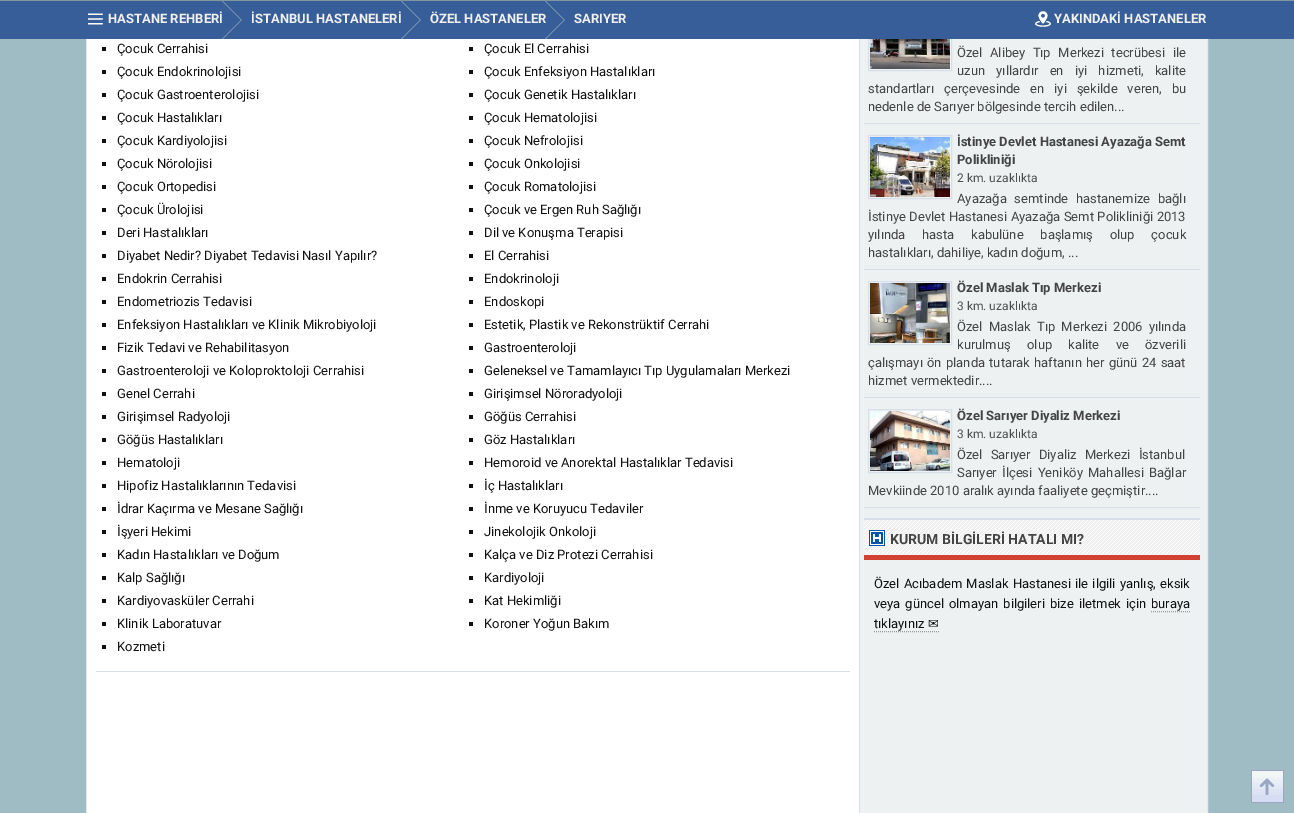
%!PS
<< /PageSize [1294 813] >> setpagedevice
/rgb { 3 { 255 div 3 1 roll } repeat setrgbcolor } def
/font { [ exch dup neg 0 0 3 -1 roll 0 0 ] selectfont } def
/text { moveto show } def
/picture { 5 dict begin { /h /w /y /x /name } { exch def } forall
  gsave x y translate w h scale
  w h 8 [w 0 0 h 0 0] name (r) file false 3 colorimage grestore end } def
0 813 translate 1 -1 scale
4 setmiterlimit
159 187 196 rgb
0 0 1294 813 rectfill
237 241 242 rgb
860 39 347 774 rectfill
230 230 230 rgb
86.5 -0.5 1121 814 rectstroke
216 223 234 rgb
868.5 7.5 83 63 rectstroke
55 94 153 rgb
0 1 1294 38 rectfill
128 151 158 rgb
0 0 1294 1 rectfill
(img_01.rgb) 88 13 15 12 picture
144 170 178 rgb
401 1 moveto 21 0 rlineto 0 19 rlineto -2 0 rlineto closepath 422 39 moveto -21 0 rlineto 19 -19 rlineto 2 0 rlineto closepath fill
55 94 153 rgb
402 1 moveto 21 0 rlineto 0 19 rlineto -2 0 rlineto closepath 423 39 moveto -21 0 rlineto 19 -19 rlineto 2 0 rlineto closepath fill
(img_02.rgb) 1035 11 16 16 picture
255 255 255 rgb
87 39 772 774 rectfill
216 223 234 rgb
859 39 1 774 rectfill
17 17 17 rgb
102 47 4 4 rectfill
469 47 4 4 rectfill
102 70 4 4 rectfill
469 70 4 4 rectfill
102 93 4 4 rectfill
469 93 4 4 rectfill
102 116 4 4 rectfill
469 116 4 4 rectfill
102 139 4 4 rectfill
469 139 4 4 rectfill
102 162 4 4 rectfill
469 162 4 4 rectfill
102 185 4 4 rectfill
469 185 4 4 rectfill
102 208 4 4 rectfill
469 208 4 4 rectfill
102 231 4 4 rectfill
469 231 4 4 rectfill
102 254 4 4 rectfill
469 254 4 4 rectfill
102 277 4 4 rectfill
469 277 4 4 rectfill
102 300 4 4 rectfill
469 300 4 4 rectfill
102 323 4 4 rectfill
469 323 4 4 rectfill
102 346 4 4 rectfill
469 346 4 4 rectfill
102 369 4 4 rectfill
469 369 4 4 rectfill
102 392 4 4 rectfill
469 392 4 4 rectfill
102 415 4 4 rectfill
469 415 4 4 rectfill
102 438 4 4 rectfill
469 438 4 4 rectfill
102 461 4 4 rectfill
469 461 4 4 rectfill
102 484 4 4 rectfill
469 484 4 4 rectfill
102 507 4 4 rectfill
469 507 4 4 rectfill
102 530 4 4 rectfill
469 530 4 4 rectfill
102 553 4 4 rectfill
469 553 4 4 rectfill
102 576 4 4 rectfill
469 576 4 4 rectfill
102 599 4 4 rectfill
469 599 4 4 rectfill
102 622 4 4 rectfill
469 622 4 4 rectfill
102 645 4 4 rectfill
216 223 234 rgb
96 671 754 1 rectfill
864 123 336 1 rectfill
(img_03.rgb) 870 39 80 30 picture
864 269 336 1 rectfill
868.5 135.5 83 63 rectstroke
(img_04.rgb) 870 137 80 60 picture
864 397 336 1 rectfill
868.5 281.5 83 63 rectstroke
(img_05.rgb) 870 283 80 60 picture
864 507 336 1 rectfill
868.5 409.5 83 63 rectstroke
(img_06.rgb) 870 411 80 60 picture
(img_07.rgb) 864 520 336 35 picture
864 518 336 2 rectfill
209 66 51 rgb
864 555 336 5 rectfill
(img_08.rgb) 869 530 16 16 picture
153 153 153 rgb
[1 1] 0 setdash
1151 611.5 moveto 39 0 rlineto stroke
874 631.5 moveto 65 0 rlineto stroke
(img_09.rgb) 1251 770 33 33 picture
/Roboto-Bold 13 font
240 240 240 rgb
(HASTANE REHBERİ) 108 23 text
144 170 178 rgb
222 1 moveto 21 0 rlineto 0 19 rlineto -2 0 rlineto closepath 243 39 moveto -21 0 rlineto 19 -19 rlineto 2 0 rlineto closepath fill
55 94 153 rgb
223 1 moveto 21 0 rlineto 0 19 rlineto -2 0 rlineto closepath 244 39 moveto -21 0 rlineto 19 -19 rlineto 2 0 rlineto closepath fill
240 240 240 rgb
(İSTANBUL HASTANELERİ) 251 23 text
(ÖZEL HASTANELER) 430 23 text
144 170 178 rgb
545 1 moveto 21 0 rlineto 0 19 rlineto -2 0 rlineto closepath 566 39 moveto -21 0 rlineto 19 -19 rlineto 2 0 rlineto closepath fill
55 94 153 rgb
546 1 moveto 21 0 rlineto 0 19 rlineto -2 0 rlineto closepath 567 39 moveto -21 0 rlineto 19 -19 rlineto 2 0 rlineto closepath fill
240 240 240 rgb
(SARIYER) 574 23 text
(YAKINDAKİ HASTANELER) 1054 23 text
/Roboto-Regular 13 font
17 17 17 rgb
(Çocuk Cerrahisi) 117 53 text
(Çocuk El Cerrahisi) 484 53 text
(Çocuk Endokrinolojisi) 117 76 text
(Çocuk Enfeksiyon Hastalıkları) 484 76 text
(Çocuk Gastroenterolojisi) 117 99 text
(Çocuk Genetik Hastalıkları) 484 99 text
(Çocuk Hastalıkları) 117 122 text
(Çocuk Hematolojisi) 484 122 text
(Çocuk Kardiyolojisi) 117 145 text
(Çocuk Nefrolojisi) 484 145 text
(Çocuk Nörolojisi) 117 168 text
(Çocuk Onkolojisi) 484 168 text
(Çocuk Ortopedisi) 117 191 text
(Çocuk Romatolojisi) 484 191 text
(Çocuk Ürolojisi) 117 214 text
(Çocuk ve Ergen Ruh Sağlığı) 484 214 text
(Deri Hastalıkları) 117 237 text
(Dil ve Konuşma Terapisi) 484 237 text
(Diyabet Nedir? Diyabet Tedavisi Nasıl Yapılır?) 117 260 text
(El Cerrahisi) 484 260 text
(Endokrin Cerrahisi) 117 283 text
(Endokrinoloji) 484 283 text
(Endometriozis Tedavisi) 117 306 text
(Endoskopi) 484 306 text
(Enfeksiyon Hastalıkları ve Klinik Mikrobiyoloji) 117 329 text
(Estetik, Plastik ve Rekonstrüktif Cerrahi) 484 329 text
(Fizik Tedavi ve Rehabilitasyon) 117 352 text
(Gastroenteroloji) 484 352 text
(Gastroenteroloji ve Koloproktoloji Cerrahisi) 117 375 text
(Geleneksel ve Tamamlayıcı Tıp Uygulamaları Merkezi) 484 375 text
(Genel Cerrahi) 117 398 text
(Girişimsel Nöroradyoloji) 484 398 text
(Girişimsel Radyoloji) 117 421 text
(Göğüs Cerrahisi) 484 421 text
(Göğüs Hastalıkları) 117 444 text
(Göz Hastalıkları) 484 444 text
(Hematoloji) 117 467 text
(Hemoroid ve Anorektal Hastalıklar Tedavisi) 484 467 text
(Hipofiz Hastalıklarının Tedavisi) 117 490 text
(İç Hastalıkları) 484 490 text
(İdrar Kaçırma ve Mesane Sağlığı) 117 513 text
(İnme ve Koruyucu Tedaviler) 484 513 text
(İşyeri Hekimi) 117 536 text
(Jinekolojik Onkoloji) 484 536 text
(Kadın Hastalıkları ve Doğum) 117 559 text
(Kalça ve Diz Protezi Cerrahisi) 484 559 text
(Kalp Sağlığı) 117 582 text
(Kardiyoloji) 484 582 text
(Kardiyovasküler Cerrahi) 117 605 text
(Kat Hekimliği) 484 605 text
(Klinik Laboratuvar) 117 628 text
(Koroner Yoğun Bakım) 484 628 text
(Kozmeti) 117 651 text
68 68 68 rgb
957 57 moveto 4.25 0 32 (Özel Alibey Tıp Merkezi tecrübesi ile) widthshow
957 75 moveto 8 0 32 (uzun yıllardır en iyi hizmeti, kalite) widthshow
868 93 moveto 6.75 0 32 (standartları çerçevesinde en iyi şekilde veren, bu) widthshow
(nedenle de Sarıyer bölgesinde tercih edilen...) 868 111 text
/Roboto-Bold 13 font
(İstinye Devlet Hastanesi Ayazağa Semt) 957 146 text
(Polikliniği) 957 164 text
/Roboto-Regular 12 font
78 78 78 rgb
(2 km. uzaklıkta) 957 182 text
/Roboto-Regular 13 font
68 68 68 rgb
957 203 moveto 4.5 0 32 (Ayazağa semtinde hastanemize bağlı) widthshow
868 221 moveto 0.25 0 32 (İstinye Devlet Hastanesi Ayazağa Semt Polikliniği 2013) widthshow
868 239 moveto 13.5 0 32 (yılında hasta kabulüne başlamış olup çocuk) widthshow
(hastalıkları, dahiliye, kadın doğum, ...) 868 257 text
/Roboto-Bold 13 font
(Özel Maslak Tıp Merkezi) 957 292 text
/Roboto-Regular 12 font
78 78 78 rgb
(3 km. uzaklıkta) 957 310 text
/Roboto-Regular 13 font
68 68 68 rgb
957 331 moveto 3 0 32 (Özel Maslak Tıp Merkezi 2006 yılında) widthshow
957 349 moveto 13 0 32 (kurulmuş olup kalite ve özverili) widthshow
868 367 moveto 1 0 32 (çalışmayı ön planda tutarak haftanın her günü 24 saat) widthshow
(hizmet vermektedir....) 868 385 text
/Roboto-Bold 13 font
(Özel Sarıyer Diyaliz Merkezi) 957 420 text
/Roboto-Regular 12 font
78 78 78 rgb
(3 km. uzaklıkta) 957 438 text
/Roboto-Regular 13 font
68 68 68 rgb
957 459 moveto 5 0 32 (Özel Sarıyer Diyaliz Merkezi İstanbul) widthshow
957 477 moveto 2 0 32 (Sarıyer İlçesi Yeniköy Mahallesi Bağlar) widthshow
(Mevkiinde 2010 aralık ayında faaliyete geçmiştir....) 868 495 text
/Roboto-Bold 14 font
(KURUM BİLGİLERİ HATALI MI?) 890 544 text
/Roboto-Regular 13 font
17 17 17 rgb
874 588 moveto 1 0 32 (Özel Acıbadem Maslak Hastanesi ile ilgili yanlış, eksik) widthshow
874 608 moveto 1.75 0 32 (veya güncel olmayan bilgileri bize iletmek için) widthshow
(buraya) 1151 608 text
(tıklayınız) 874 628 text
/DejaVuSans-Regular 13 font
(✉) 928 628 text
showpage
